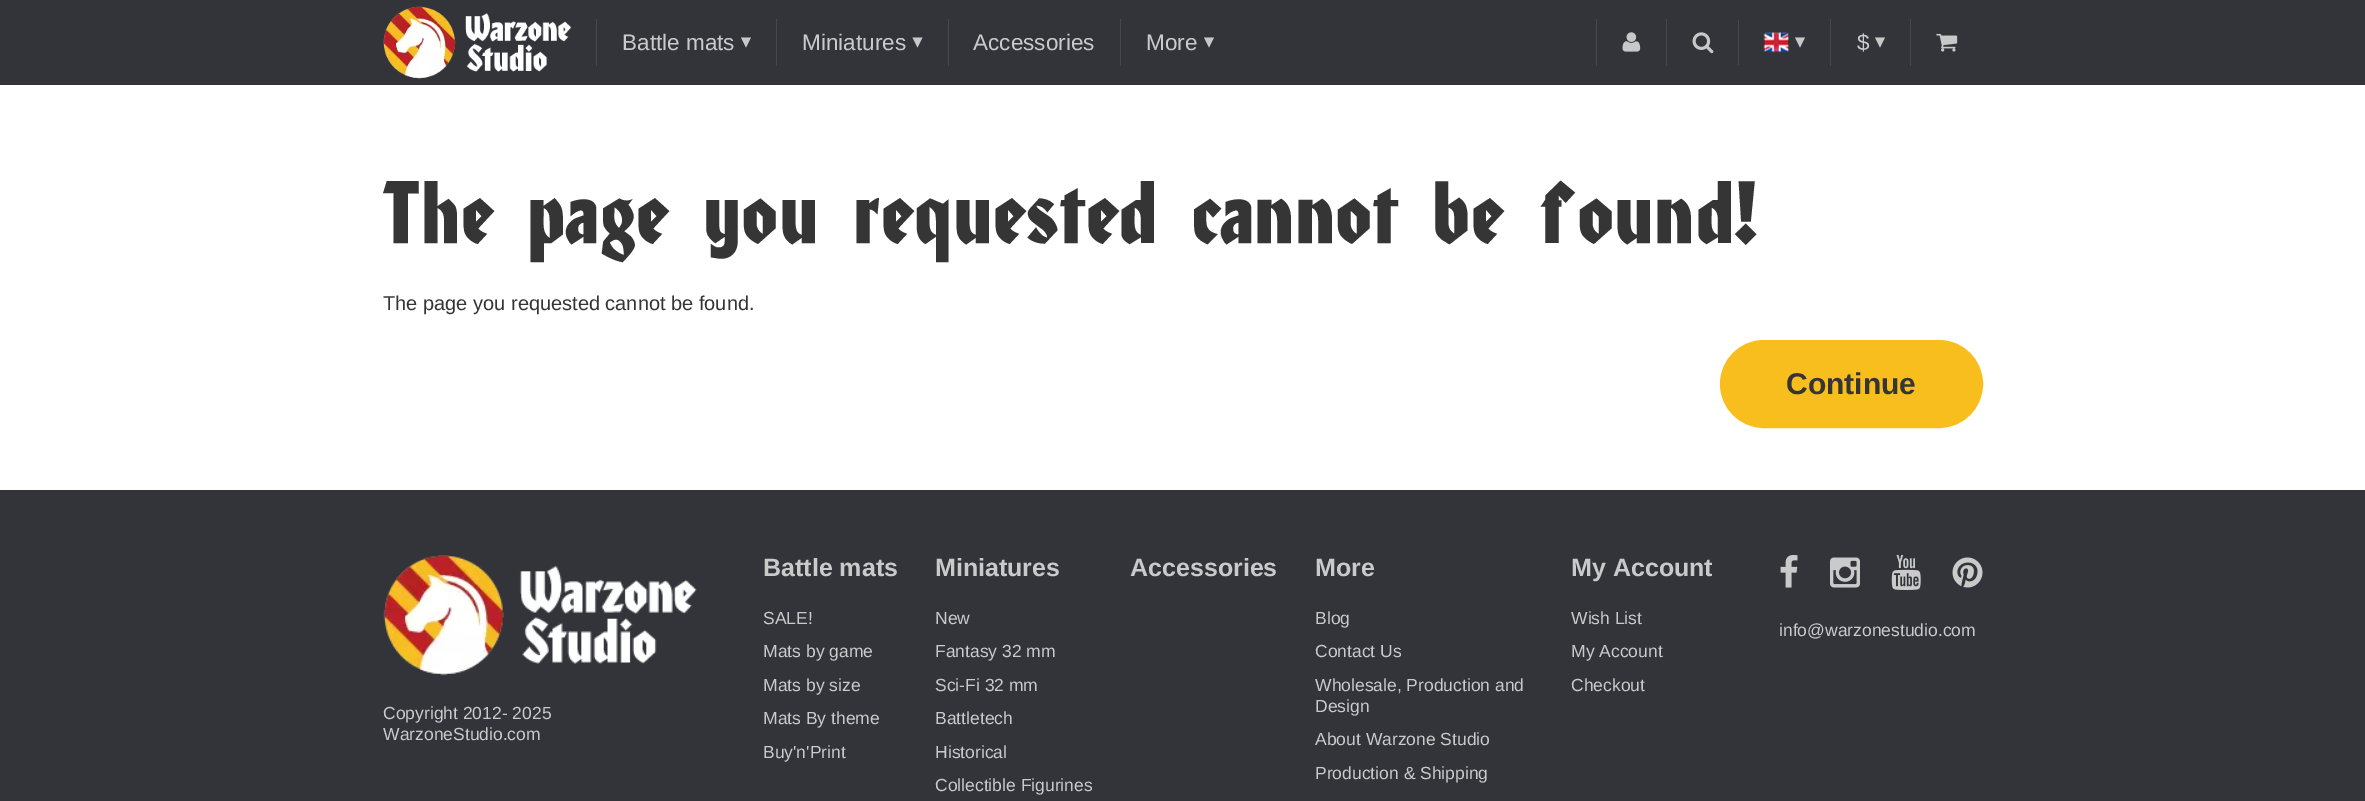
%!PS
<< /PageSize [2365 801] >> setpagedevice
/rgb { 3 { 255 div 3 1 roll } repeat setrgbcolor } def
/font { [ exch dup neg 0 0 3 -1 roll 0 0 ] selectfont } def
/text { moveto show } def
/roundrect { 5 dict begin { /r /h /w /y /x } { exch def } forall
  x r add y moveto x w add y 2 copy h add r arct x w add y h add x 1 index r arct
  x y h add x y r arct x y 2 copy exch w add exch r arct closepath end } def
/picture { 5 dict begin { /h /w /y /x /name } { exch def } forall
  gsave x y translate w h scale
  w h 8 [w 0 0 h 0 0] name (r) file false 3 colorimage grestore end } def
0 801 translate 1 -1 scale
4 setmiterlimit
255 255 255 rgb
0 0 2365 801 rectfill
51 52 58 rgb
0 0 2365 85 rectfill
(img_01.rgb) 383 6 189 73 picture
70 71 79 rgb
596 19 1 47 rectfill
200 200 200 rgb
741 37.5 moveto 10 0 rlineto -5 10 rlineto closepath fill
70 71 79 rgb
776 19 1 47 rectfill
200 200 200 rgb
912.5 37.5 moveto 10 0 rlineto -5 10 rlineto closepath fill
70 71 79 rgb
948 19 1 47 rectfill
1120 19 1 47 rectfill
200 200 200 rgb
1204 37.5 moveto 10 0 rlineto -5 10 rlineto closepath fill
70 71 79 rgb
1596 19 1 47 rectfill
(img_02.rgb) 1622 32 19 20 picture
1666 19 1 47 rectfill
(img_03.rgb) 1692 32 22 22 picture
1738 20 1 45 rectfill
(img_04.rgb) 1763 32 26 21 picture
200 200 200 rgb
1795 37.5 moveto 10 0 rlineto -5 10 rlineto closepath fill
70 71 79 rgb
1830 19 1 47 rectfill
200 200 200 rgb
1875 37.5 moveto 10 0 rlineto -5 10 rlineto closepath fill
70 71 79 rgb
1910 19 1 47 rectfill
(img_05.rgb) 1936 33 22 19 picture
247 190 30 rgb
1722 342 259 84 42 roundrect gsave fill grestore
4 setlinewidth
stroke
51 52 58 rgb
0 490 2365 311 rectfill
(img_06.rgb) 1780 555 18 33 picture
(img_07.rgb) 1830 557 30 31 picture
(img_08.rgb) 1891 555 30 35 picture
(img_09.rgb) 1952 557 31 31 picture
(img_10.rgb) 383 555 314 121 picture
/LiberationSans-Regular 22.5 font
202 202 202 rgb
(Battle mats) 622 50 text
(Miniatures) 802 50 text
(Accessories) 973 50 text
(More) 1146 50 text
($) 1857 50 text
/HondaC-Regular 81.25 font
53 53 53 rgb
(The page you requested cannot be found!) 383 243 text
/LiberationSans-Regular 20 font
(The page you requested cannot be found.) 383 310 text
/LiberationSans-Bold 30 font
(Continue) 1786 394 text
/LiberationSans-Bold 25 font
202 202 202 rgb
(Battle mats) 763 576 text
/LiberationSans-Regular 17.5 font
(SALE!) 763 624 text
(Mats by game) 763 657 text
(Mats by size) 763 691 text
(Mats By theme) 763 724 text
(Buy'n'Print) 763 758 text
/LiberationSans-Bold 25 font
(Miniatures) 935 576 text
/LiberationSans-Regular 17.5 font
(New) 935 624 text
(Fantasy 32 mm) 935 657 text
(Sci-Fi 32 mm) 935 691 text
(Battletech) 935 724 text
(Historical) 935 758 text
(Collectible Figurines) 935 791 text
/LiberationSans-Bold 25 font
(Accessories) 1130 576 text
(More) 1315 576 text
/LiberationSans-Regular 17.5 font
(Blog) 1315 624 text
(Contact Us) 1315 657 text
(Wholesale, Production and) 1315 691 text
(Design) 1315 712 text
(About Warzone Studio) 1315 745 text
(Production & Shipping) 1315 779 text
/LiberationSans-Bold 25 font
(My Account) 1571 576 text
/LiberationSans-Regular 17.5 font
(Wish List) 1571 624 text
(My Account) 1571 657 text
(Checkout) 1571 691 text
(info@warzonestudio.com) 1779 636 text
(Copyright 2012- 2025) 383 719 text
(WarzoneStudio.com) 383 740 text
showpage
